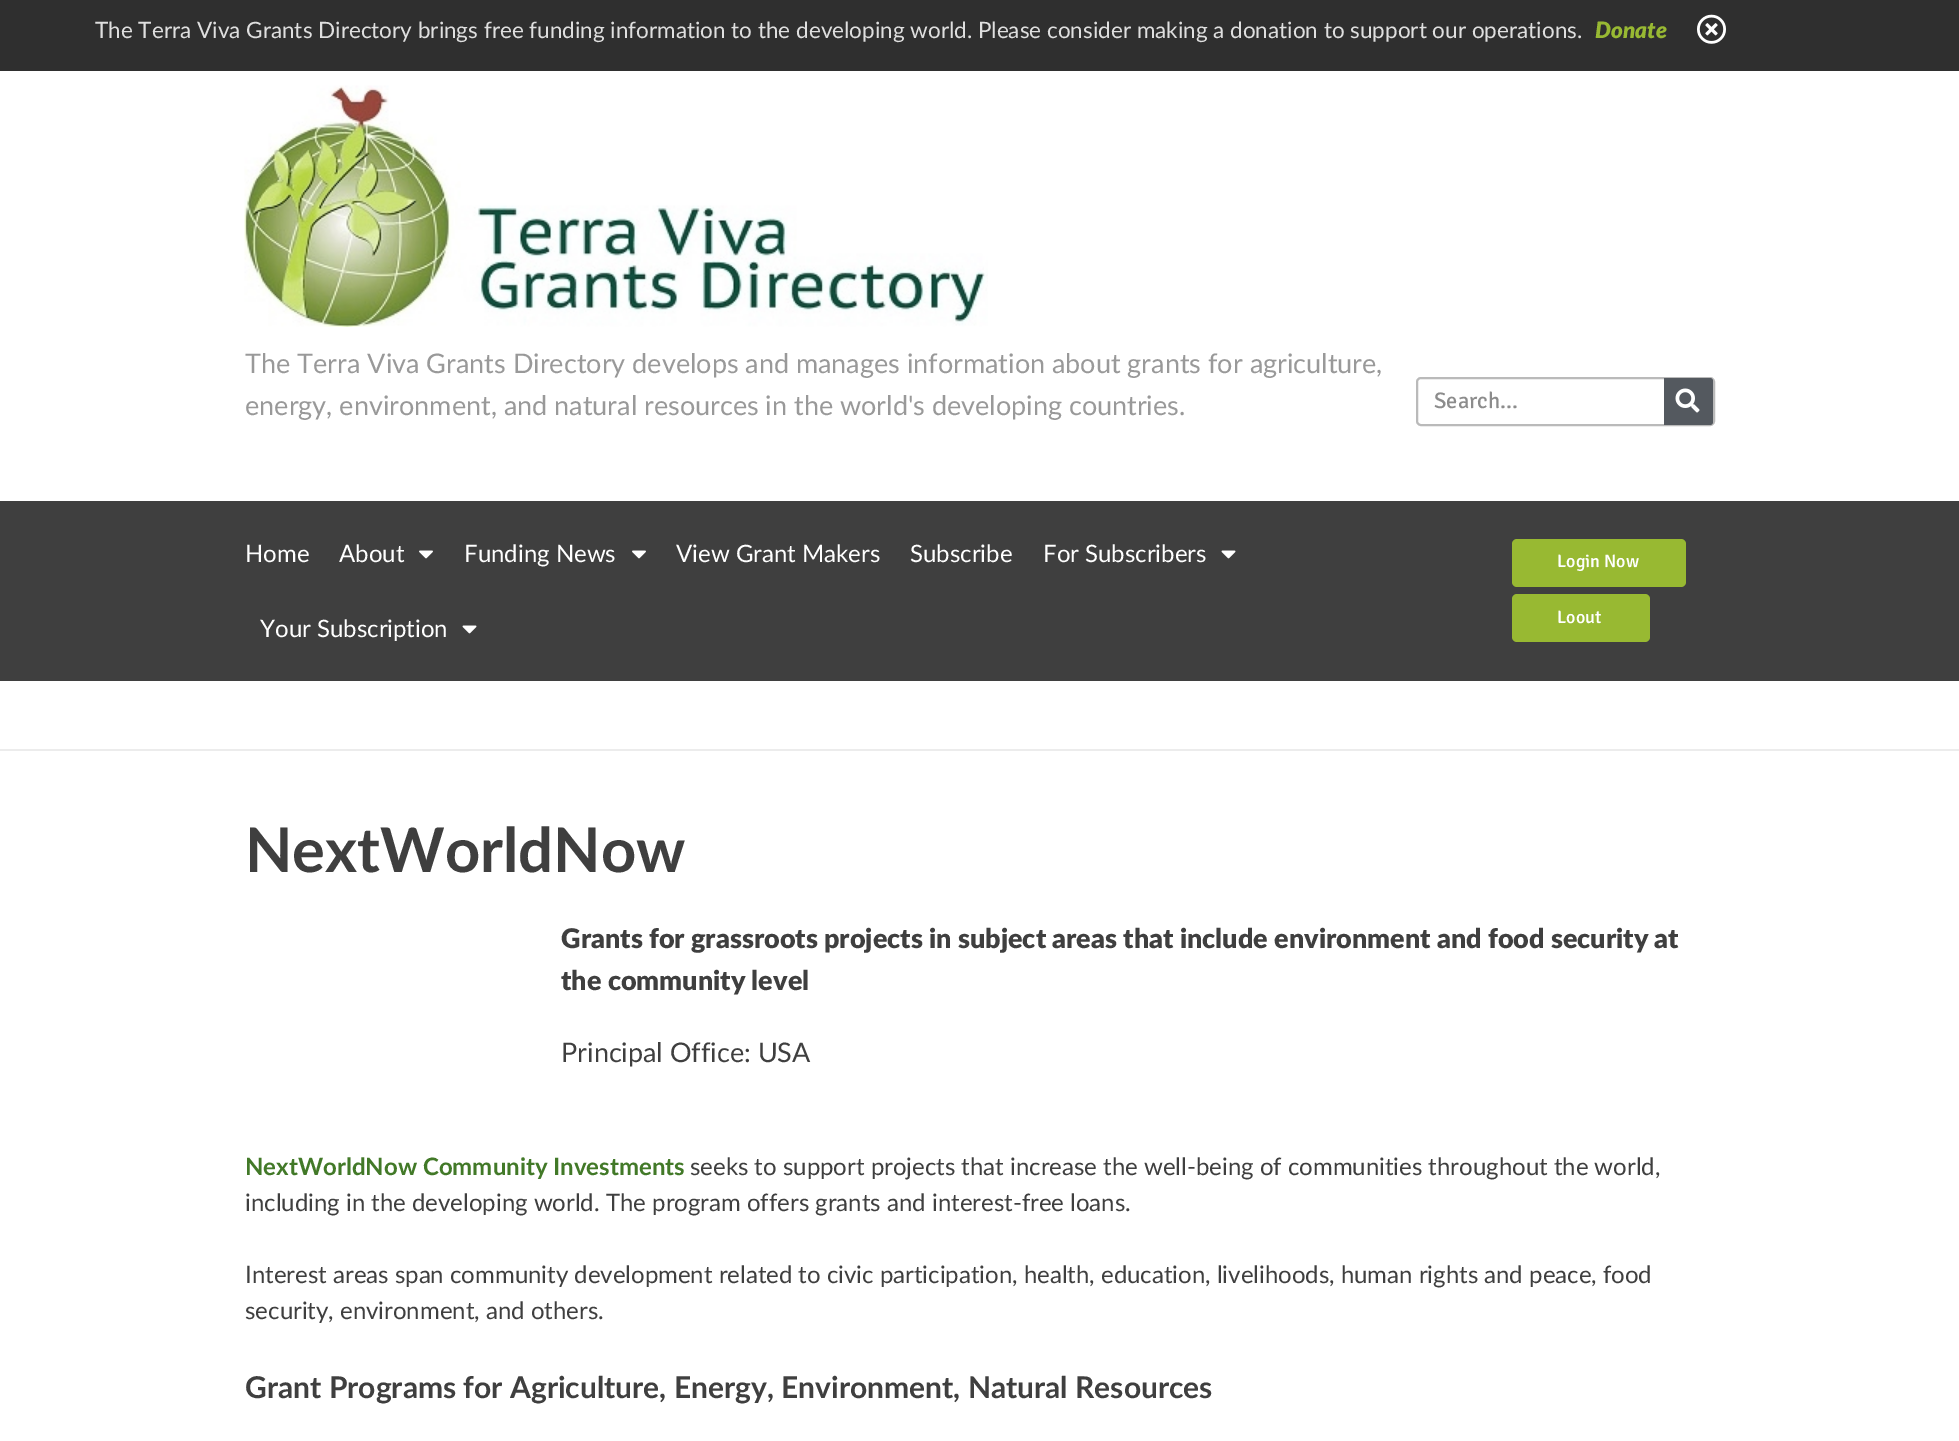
%!PS
<< /PageSize [1959 1441] >> setpagedevice
/rgb { 3 { 255 div 3 1 roll } repeat setrgbcolor } def
/font { [ exch dup neg 0 0 3 -1 roll 0 0 ] selectfont } def
/text { moveto show } def
/roundrect { 5 dict begin { /r /h /w /y /x } { exch def } forall
  x r add y moveto x w add y 2 copy h add r arct x w add y h add x 1 index r arct
  x y h add x y r arct x y 2 copy exch w add exch r arct closepath end } def
/picture { 5 dict begin { /h /w /y /x /name } { exch def } forall
  gsave x y translate w h scale
  w h 8 [w 0 0 h 0 0] name (r) file false 3 colorimage grestore end } def
0 1441 translate 1 -1 scale
4 setmiterlimit
255 255 255 rgb
0 0 1959 1441 rectfill
47 47 47 rgb
0 0 1959 71 rectfill
(img_01.rgb) 1697 14 29 30 picture
(img_02.rgb) 244 85 744 242 picture
186 186 186 rgb
2 setlinewidth
1417 378 297 47 4 roundrect stroke
84 89 95 rgb
1664 378 moveto 46 0 rlineto 1.5 0 3 1.5 3 3 rcurveto 0 41 rlineto 0 1.5 -1.5 3 -3 3 rcurveto -46 0 rlineto closepath fill
(img_03.rgb) 1675 388 25 25 picture
63 63 63 rgb
0 501 1959 180 rectfill
(img_04.rgb) 419 550 14 9 picture
(img_04.rgb) 632 550 14 9 picture
(img_05.rgb) 1221 550 15 9 picture
(img_05.rgb) 462 625 15 9 picture
152 185 50 rgb
1512 539 174 48 5 roundrect fill
1512 594 138 48 5 roundrect fill
236 236 236 rgb
0 749 1959 2 rectfill
/Lato-Regular 22.5 font
223 223 223 rgb
(The Terra Viva Grants Directory brings free funding information to the developing world. Please consider making a donation to support our operations.) 95 38 text
/Lato-ExtraBoldItalic 22.5 font
152 185 51 rgb
(Donate) 1595 38 text
/Lato-Regular 27 font
153 153 153 rgb
(The Terra Viva Grants Directory develops and manages information about grants for agriculture,) 245 373 text
(energy, environment, and natural resources in the world's developing countries.) 245 415 text
/Signika-Regular 22.5 font
140 140 140 rgb
(Search...) 1434 408 text
/Lato-Regular 24 font
255 255 255 rgb
(Home) 245 562 text
(About) 339 562 text
(Funding News) 464 562 text
(View Grant Makers) 676 562 text
(Subscribe) 910 562 text
(For Subscribers) 1043 562 text
(Your Subscription) 260 637 text
/Signika-Medium 18 font
(Login Now) 1557 567 text
(Loout) 1557 623 text
/Lato-Bold 61.5 font
63 63 63 rgb
(NextWorldNow) 245 872 text
/Lato-ExtraBold 27 font
(Grants for grassroots projects in subject areas that include environment and food security at) 561 948 text
(the community level) 561 990 text
/Lato-Regular 27 font
(Principal Office: USA) 561 1062 text
/Lato-Bold 24 font
66 121 40 rgb
(NextWorldNow Community Investments) 245 1175 text
/Lato-Regular 24 font
63 63 63 rgb
(seeks to support projects that increase the well-being of communities throughout the world,) 690 1175 text
(including in the developing world. The program offers grants and interest-free loans.) 245 1211 text
(Interest areas span community development related to civic participation, health, education, livelihoods, human rights and peace, food) 245 1283 text
(security, environment, and others.) 245 1319 text
/Lato-Bold 30 font
(Grant Programs for Agriculture, Energy, Environment, Natural Resources) 245 1398 text
showpage
